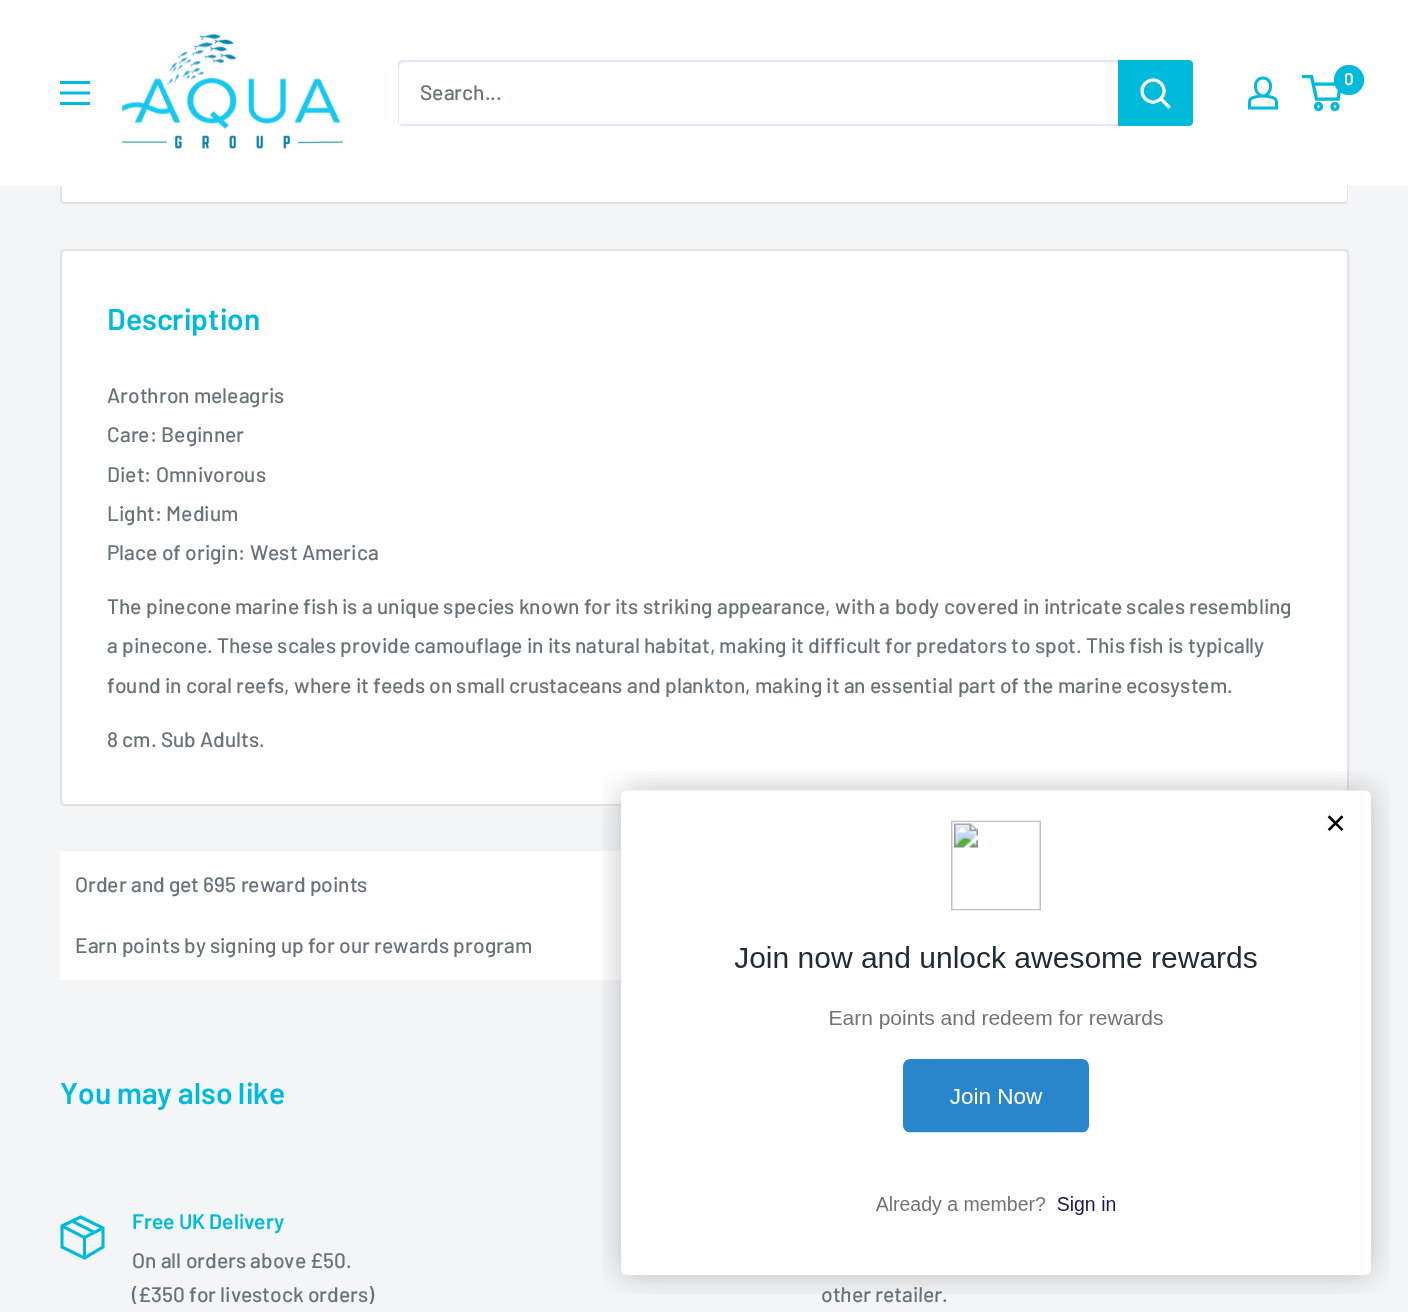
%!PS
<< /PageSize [1408 1312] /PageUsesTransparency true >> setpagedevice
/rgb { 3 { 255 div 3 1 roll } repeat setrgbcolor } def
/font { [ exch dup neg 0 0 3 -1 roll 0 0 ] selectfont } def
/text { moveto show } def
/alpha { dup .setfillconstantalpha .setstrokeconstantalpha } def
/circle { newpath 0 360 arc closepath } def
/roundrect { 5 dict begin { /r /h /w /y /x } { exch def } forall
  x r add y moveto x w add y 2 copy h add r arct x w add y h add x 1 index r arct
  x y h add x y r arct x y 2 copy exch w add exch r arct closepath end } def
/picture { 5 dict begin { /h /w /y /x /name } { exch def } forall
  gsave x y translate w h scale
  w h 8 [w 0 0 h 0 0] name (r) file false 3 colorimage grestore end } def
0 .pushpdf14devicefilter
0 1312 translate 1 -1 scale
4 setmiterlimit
243 245 246 rgb
0 0 1408 1312 rectfill
255 255 255 rgb
60 -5 1289 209 5 roundrect fill
225 227 228 rgb
64 -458 moveto 1280 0 rlineto 2 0 4 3 4 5 rcurveto 0 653 rlineto 0 2 -2 4 -4 4 rcurveto -1280 0 rlineto -2 0 -4 -2 -4 -4 rcurveto 0 -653 rlineto 0 -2 2 -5 4 -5 rcurveto closepath 64 -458 moveto 1280 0 rlineto 2 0 3 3 3 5 rcurveto 0 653 rlineto 0 1 -1 2 -3 2 rcurveto -1280 0 rlineto -1 0 -2 -1 -2 -2 rcurveto 0 -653 rlineto 0 -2 1 -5 2 -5 rcurveto closepath eofill
255 255 255 rgb
0 0 1408 186 rectfill
(img_01.rgb) 121 33 223 116 picture
(img_02.rgb) 1248 76 30 34 picture
0 186 219 rgb
3 setlinewidth
1318.5 106.5 3 circle stroke
1335 106.5 3 circle stroke
1313 84 moveto 27.5 0 rlineto -2.5 15 rlineto -21.5 0 rlineto -5 -22.5 rlineto -9.5 0 rlineto stroke
1349 80 15 circle fill
(img_03.rgb) 60 81 30 24 picture
227 231 250 rgb
399 124 moveto 1 1 2 2 4 2 rcurveto 785 0 rlineto 3 0 5 -2 5 -5 rcurveto 0 -56 rlineto 0 -2 -1 -4 -3 -4 rcurveto 1 2 rlineto 0 57 rlineto 0 2 -2 4 -5 4 rcurveto closepath fill
0.3 alpha
163 175 239 rgb
404 62 moveto 786 0 rlineto 3 1 rlineto -1 -2 -3 -3 -5 -3 rcurveto -785 0 rlineto -3 0 -5 2 -5 5 rcurveto 0 56 rlineto 0 1 0 2 1 3 rcurveto 0 -48 rlineto 0 -5 -2 -14 5 -14 rcurveto closepath fill
1 alpha
0 186 219 rgb
1118 60 moveto 70 0 rlineto 3 0 5 2 5 5 rcurveto 0 56 rlineto 0 3 -2 5 -5 5 rcurveto -70 0 rlineto closepath fill
255 255 255 rgb
2 setlinecap
1168.5 106.5 moveto -7.5 -7.5 rlineto stroke
0 setlinecap
1153 91 11 circle stroke
61 250 1287 555 4 roundrect gsave fill grestore
225 227 228 rgb
2 setlinewidth
stroke
255 255 255 rgb
60 851 561 129 rectfill
0 186 219 rgb
2.8 setlinewidth
72 1221 moveto 22.5 11.5 rlineto 103 1228 moveto -18.5 9.5 rlineto -22.5 -11.5 rlineto 84.5 1237.5 moveto 0 20.5 rlineto stroke
2 setlinecap
103 1228 moveto 0 19 rlineto -18.5 11 rlineto -22.5 -11 rlineto 0 -21 rlineto 18.5 -9 rlineto closepath stroke
/Barlow-SemiBold 17 font
255 255 255 rgb
(0) 1344 85 text
/Barlow-Medium 21 font
103 114 121 rgb
(Search...) 420 100 text
/Barlow-SemiBold 30 font
0 186 219 rgb
(Description) 107 330 text
/Barlow-Medium 21 font
103 114 121 rgb
(Arothron meleagris) 107 403 text
(Care: Beginner) 107 442 text
(Diet: Omnivorous) 107 482 text
(Light: Medium) 107 521 text
(Place of origin: West America) 107 560 text
(The pinecone marine fish is a unique species known for its striking appearance, with a body covered in intricate scales resembling) 107 614 text
(a pinecone. These scales provide camouflage in its natural habitat, making it difficult for predators to spot. This fish is typically) 107 653 text
(found in coral reefs, where it feeds on small crustaceans and plankton, making it an essential part of the marine ecosystem.) 107 693 text
(8 cm. Sub Adults.) 107 747 text
(Order and get 695 reward points) 75 892 text
(Earn points by signing up for our rewards program) 75 953 text
/Barlow-SemiBold 30 font
0 186 219 rgb
(You may also like) 60 1104 text
/Barlow-SemiBold 21 font
(Free UK Delivery) 132 1229 text
/Barlow-Medium 21 font
103 114 121 rgb
(On all orders above £50.) 132 1268 text
(\(£350 for livestock orders\)) 132 1302 text
(other retailer.) 821 1302 text
(img_04.rgb) 602 771 788 523 picture
.poppdf14devicefilter showpage
